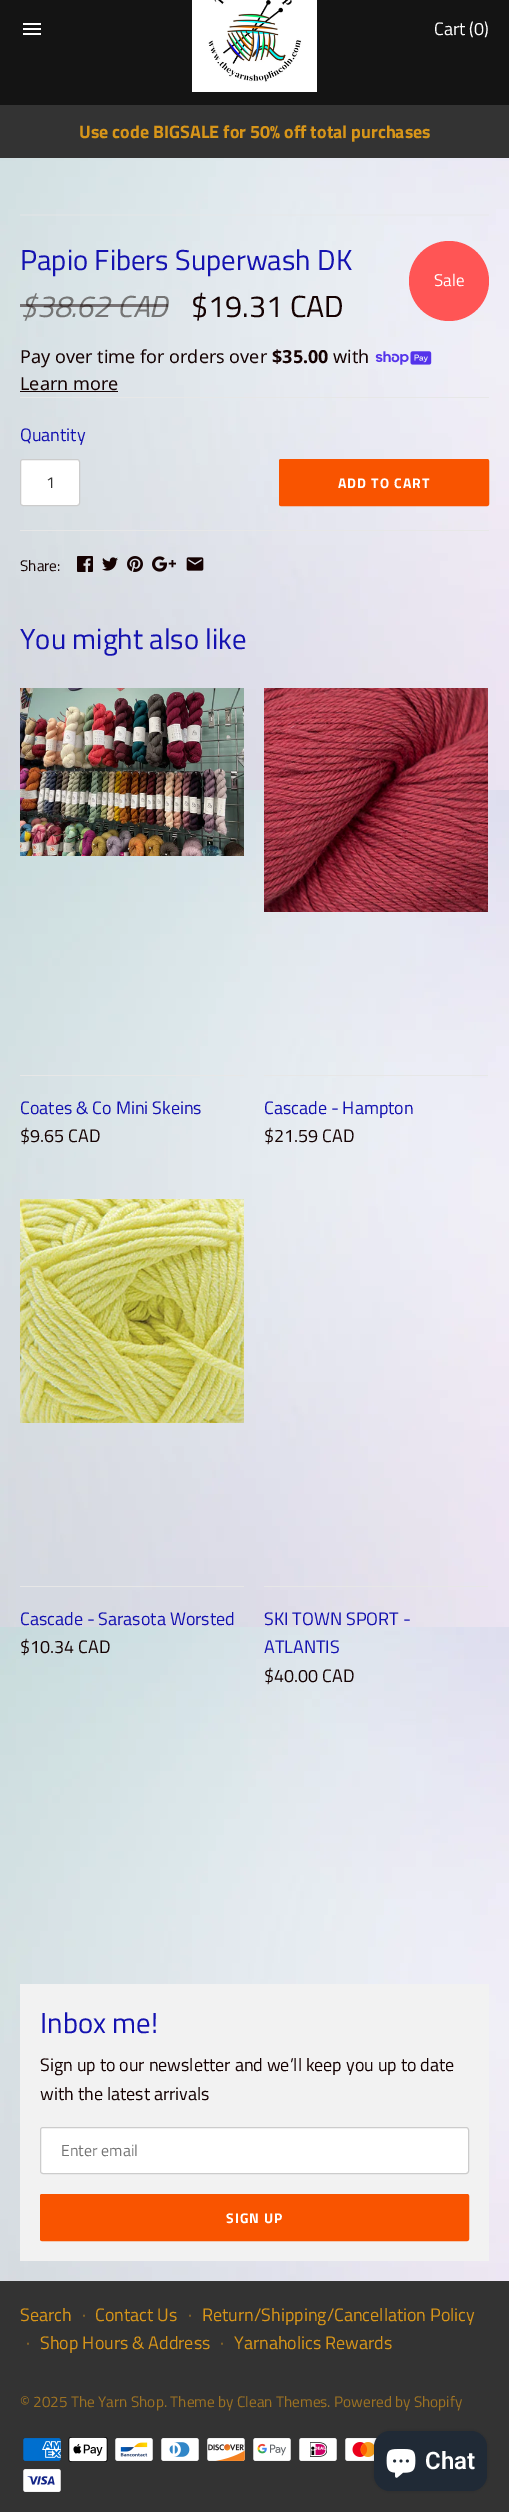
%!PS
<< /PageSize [509 2512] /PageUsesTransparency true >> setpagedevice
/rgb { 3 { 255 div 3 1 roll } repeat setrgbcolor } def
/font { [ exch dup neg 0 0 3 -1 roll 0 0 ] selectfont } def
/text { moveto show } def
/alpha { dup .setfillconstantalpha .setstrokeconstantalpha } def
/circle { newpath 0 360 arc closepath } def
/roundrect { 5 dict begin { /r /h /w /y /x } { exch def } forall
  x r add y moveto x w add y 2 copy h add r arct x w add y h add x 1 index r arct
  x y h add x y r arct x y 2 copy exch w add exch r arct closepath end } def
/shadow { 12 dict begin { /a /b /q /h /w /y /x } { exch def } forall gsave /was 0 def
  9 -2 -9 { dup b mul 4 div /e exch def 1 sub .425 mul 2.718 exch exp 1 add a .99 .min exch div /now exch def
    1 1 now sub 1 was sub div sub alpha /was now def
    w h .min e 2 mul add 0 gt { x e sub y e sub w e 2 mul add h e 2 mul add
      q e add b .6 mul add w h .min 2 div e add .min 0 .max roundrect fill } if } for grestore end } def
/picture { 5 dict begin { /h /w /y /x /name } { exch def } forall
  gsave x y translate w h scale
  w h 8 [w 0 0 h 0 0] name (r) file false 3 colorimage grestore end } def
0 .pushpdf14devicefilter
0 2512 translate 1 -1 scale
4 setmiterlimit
255 255 255 rgb
0 0 509 2512 rectfill
(img_01.rgb) 0 158 509 2123 picture
20 20 20 rgb
0 0 509 105 rectfill
(img_02.rgb) 23 23 18 12 picture
(img_03.rgb) 192 0 125 92 picture
51 51 51 rgb
0 105 509 53 rectfill
0.4 alpha
231 231 231 rgb
20 214 469 2 rectfill
1 alpha
255 85 85 rgb
449 281 40 circle fill
(img_04.rgb) 375 351 57 14 picture
21 2 2 rgb
20 391 98 1 rectfill
231 231 231 rgb
20 397 469 1 rectfill
255 255 255 rgb
20.5 459.5 59 46 2.5 roundrect gsave fill grestore
204 204 204 rgb
stroke
249 84 0 rgb
279.5 459.5 209 46 1.5 roundrect gsave fill grestore
stroke
231 231 231 rgb
20 530 469 1 rectfill
(img_05.rgb) 77 556 16 16 picture
(img_06.rgb) 102 557 16 14 picture
(img_07.rgb) 127 556 16 16 picture
(img_08.rgb) 152 556 24 16 picture
(img_09.rgb) 186 557 18 14 picture
(img_10.rgb) 20 688 224 168 picture
20 1075 224 1 rectfill
(img_11.rgb) 264 688 224 224 picture
264 1075 224 1 rectfill
(img_12.rgb) 20 1199 224 224 picture
20 1586 224 1 rectfill
264 1586 224 1 rectfill
242 242 242 rgb
20 1984 469 277 rectfill
255 255 255 rgb
40.5 2127.5 428 46 2.5 roundrect gsave fill grestore
204 204 204 rgb
stroke
249 84 0 rgb
40.5 2194.5 428 46 1.5 roundrect gsave fill grestore
stroke
51 51 51 rgb
0 2281 509 231 rectfill
(img_13.rgb) 23 2438 38 23 picture
(img_14.rgb) 68 2437 40 25 picture
(img_15.rgb) 115 2438 38 23 picture
(img_16.rgb) 161 2438 38 23 picture
(img_17.rgb) 207 2438 38 23 picture
(img_18.rgb) 253 2438 38 23 picture
(img_19.rgb) 299 2438 38 23 picture
(img_20.rgb) 345 2438 32 23 picture
(img_21.rgb) 23 2469 38 23 picture
0 0 0 rgb
374 2431 113 60 16 2.5 0.15 shadow
32 42 54 rgb
374 2431 113 60 16 roundrect fill
(img_22.rgb) 386 2449 30 29 picture
/TitilliumWeb-Regular 18 font
255 255 255 rgb
(Cart \(0\)) 434 35 text
/TitilliumWeb-Bold 18 font
215 149 25 rgb
(Use code BIGSALE for 50% off total purchases) 79 138 text
/TitilliumWeb-Regular 28.75 font
20 18 176 rgb
(Papio Fibers Superwash DK) 20 270 text
/TitilliumWeb-Regular 17 font
255 255 255 rgb
(Sale) 434 286 text
/TitilliumWeb-Italic 30.5 font
117 117 117 rgb
($38.62 CAD) 20 317 text
0.5 alpha
21 2 2 rgb
20 304 148 3 rectfill
/TitilliumWeb-Regular 30.5 font
1 alpha
($19.31 CAD) 191 317 text
/NotoSans-Regular 18 font
(Pay over time for orders over) 20 363 text
/NotoSans-Bold 18 font
($35.00) 272 363 text
/NotoSans-Regular 18 font
(with) 333 363 text
(Learn more) 20 390 text
/TitilliumWeb-Regular 18 font
20 18 176 rgb
(Quantity) 20 441 text
/TitilliumWeb-Regular 16 font
51 51 51 rgb
(1) 46 488 text
/TitilliumWeb-Bold 14 font
255 255 255 rgb
338 488 moveto 1 0 (ADD TO CART) ashow
/TitilliumWeb-Regular 15.3 font
21 2 2 rgb
(Share:) 20 571 text
/TitilliumWeb-Regular 28.75 font
20 18 176 rgb
(You might also like) 20 649 text
/TitilliumWeb-Regular 18 font
(Coates & Co Mini Skeins) 20 1114 text
21 2 2 rgb
($9.65 CAD) 20 1142 text
20 18 176 rgb
(Cascade - Hampton) 264 1114 text
21 2 2 rgb
($21.59 CAD) 264 1142 text
20 18 176 rgb
(Cascade - Sarasota Worsted) 20 1625 text
21 2 2 rgb
($10.34 CAD) 20 1653 text
20 18 176 rgb
(SKI TOWN SPORT -) 264 1625 text
(ATLANTIS) 264 1653 text
21 2 2 rgb
($40.00 CAD) 264 1682 text
/TitilliumWeb-Regular 28.75 font
20 18 176 rgb
(Inbox me!) 40 2033 text
/TitilliumWeb-Regular 18 font
21 2 2 rgb
(Sign up to our newsletter and we’ll keep you up to date) 40 2071 text
(with the latest arrivals) 40 2100 text
/TitilliumWeb-Regular 16 font
117 117 117 rgb
(Enter email) 61 2156 text
/TitilliumWeb-Bold 14 font
255 255 255 rgb
226 2223 moveto 1 0 (SIGN UP) ashow
/TitilliumWeb-Regular 18 font
215 149 25 rgb
(Search) 20 2321 text
157 114 34 rgb
(·) 82 2321 text
215 149 25 rgb
(Contact Us) 95 2321 text
157 114 34 rgb
(·) 188 2321 text
215 149 25 rgb
(Return/Shipping/Cancellation Policy) 202 2321 text
157 114 34 rgb
(·) 26 2349 text
215 149 25 rgb
(Shop Hours & Address) 40 2349 text
157 114 34 rgb
(·) 220 2349 text
215 149 25 rgb
(Yarnaholics Rewards) 234 2349 text
/TitilliumWeb-Regular 15.3 font
157 114 34 rgb
(© 2025 The Yarn Shop. Theme by Clean Themes. Powered by Shopify) 20 2407 text
/Roboto-SemiBold 24 font
255 255 255 rgb
(Chat) 425 2469 text
.poppdf14devicefilter showpage
